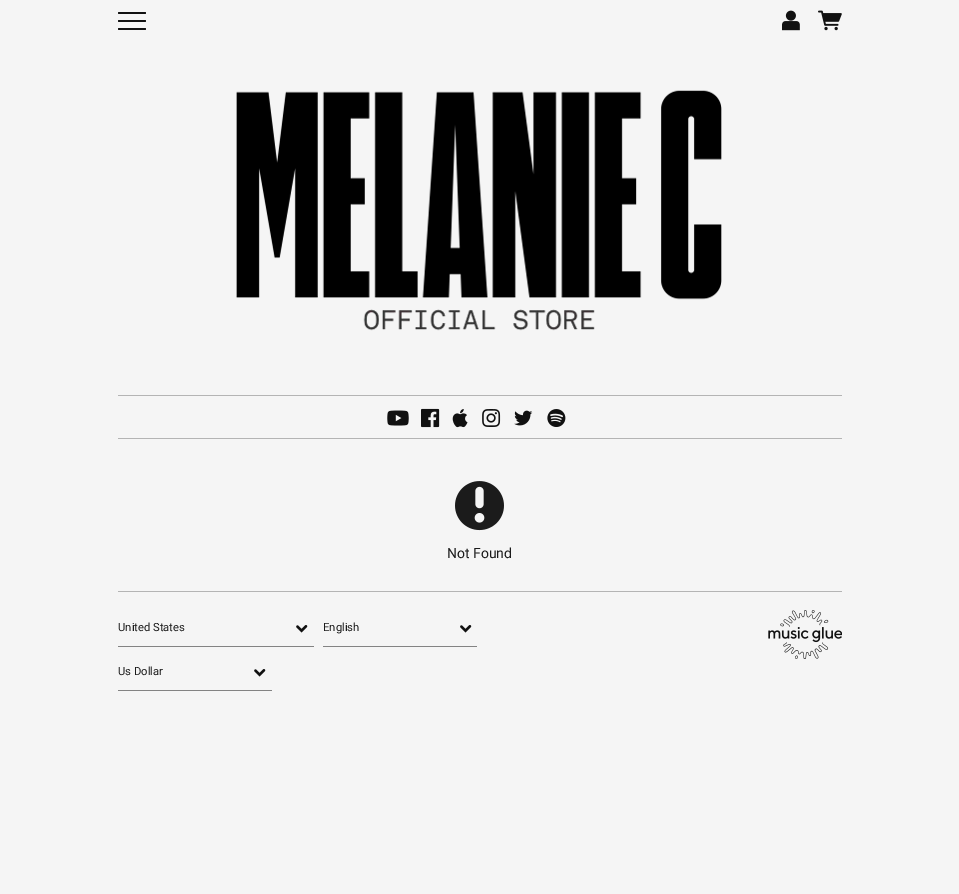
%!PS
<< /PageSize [959 894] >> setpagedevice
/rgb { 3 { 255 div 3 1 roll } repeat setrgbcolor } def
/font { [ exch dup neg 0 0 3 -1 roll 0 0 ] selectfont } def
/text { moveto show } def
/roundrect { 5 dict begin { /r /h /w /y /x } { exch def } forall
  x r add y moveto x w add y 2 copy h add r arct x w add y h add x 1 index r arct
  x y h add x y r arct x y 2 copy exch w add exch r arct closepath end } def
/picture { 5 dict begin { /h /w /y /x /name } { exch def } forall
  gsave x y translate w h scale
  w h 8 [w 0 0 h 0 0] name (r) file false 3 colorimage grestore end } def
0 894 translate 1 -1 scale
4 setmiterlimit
245 245 245 rgb
0 0 959 894 rectfill
17 17 17 rgb
118 12 28 2 1 roundrect fill
118 20 28 2 1 roundrect fill
118 28 28 2 1 roundrect fill
(img_01.rgb) 782 10 18 21 picture
(img_02.rgb) 818 10 24 21 picture
(img_03.rgb) 236 90 486 241 picture
180 180 180 rgb
118 395 724 1 rectfill
118 438 724 1 rectfill
(img_04.rgb) 387 410 22 16 picture
(img_05.rgb) 421 408 19 20 picture
(img_06.rgb) 452 409 16 19 picture
(img_07.rgb) 482 409 19 18 picture
(img_08.rgb) 514 410 19 16 picture
(img_09.rgb) 547 409 19 18 picture
(img_10.rgb) 455 481 49 50 picture
118 591 724 1 rectfill
131 131 131 rgb
118 646 196 1 rectfill
(img_11.rgb) 296 625 12 8 picture
323 646 154 1 rectfill
(img_12.rgb) 460 625 12 8 picture
118 690 154 1 rectfill
(img_13.rgb) 254 669 12 8 picture
(img_14.rgb) 768 610 74 49 picture
/Roboto-Regular 14 font
27 27 27 rgb
(Not Found) 447 558 text
/Roboto-Regular 11.25 font
(United States) 118 631 text
(English) 323 631 text
(Us Dollar) 118 675 text
showpage
